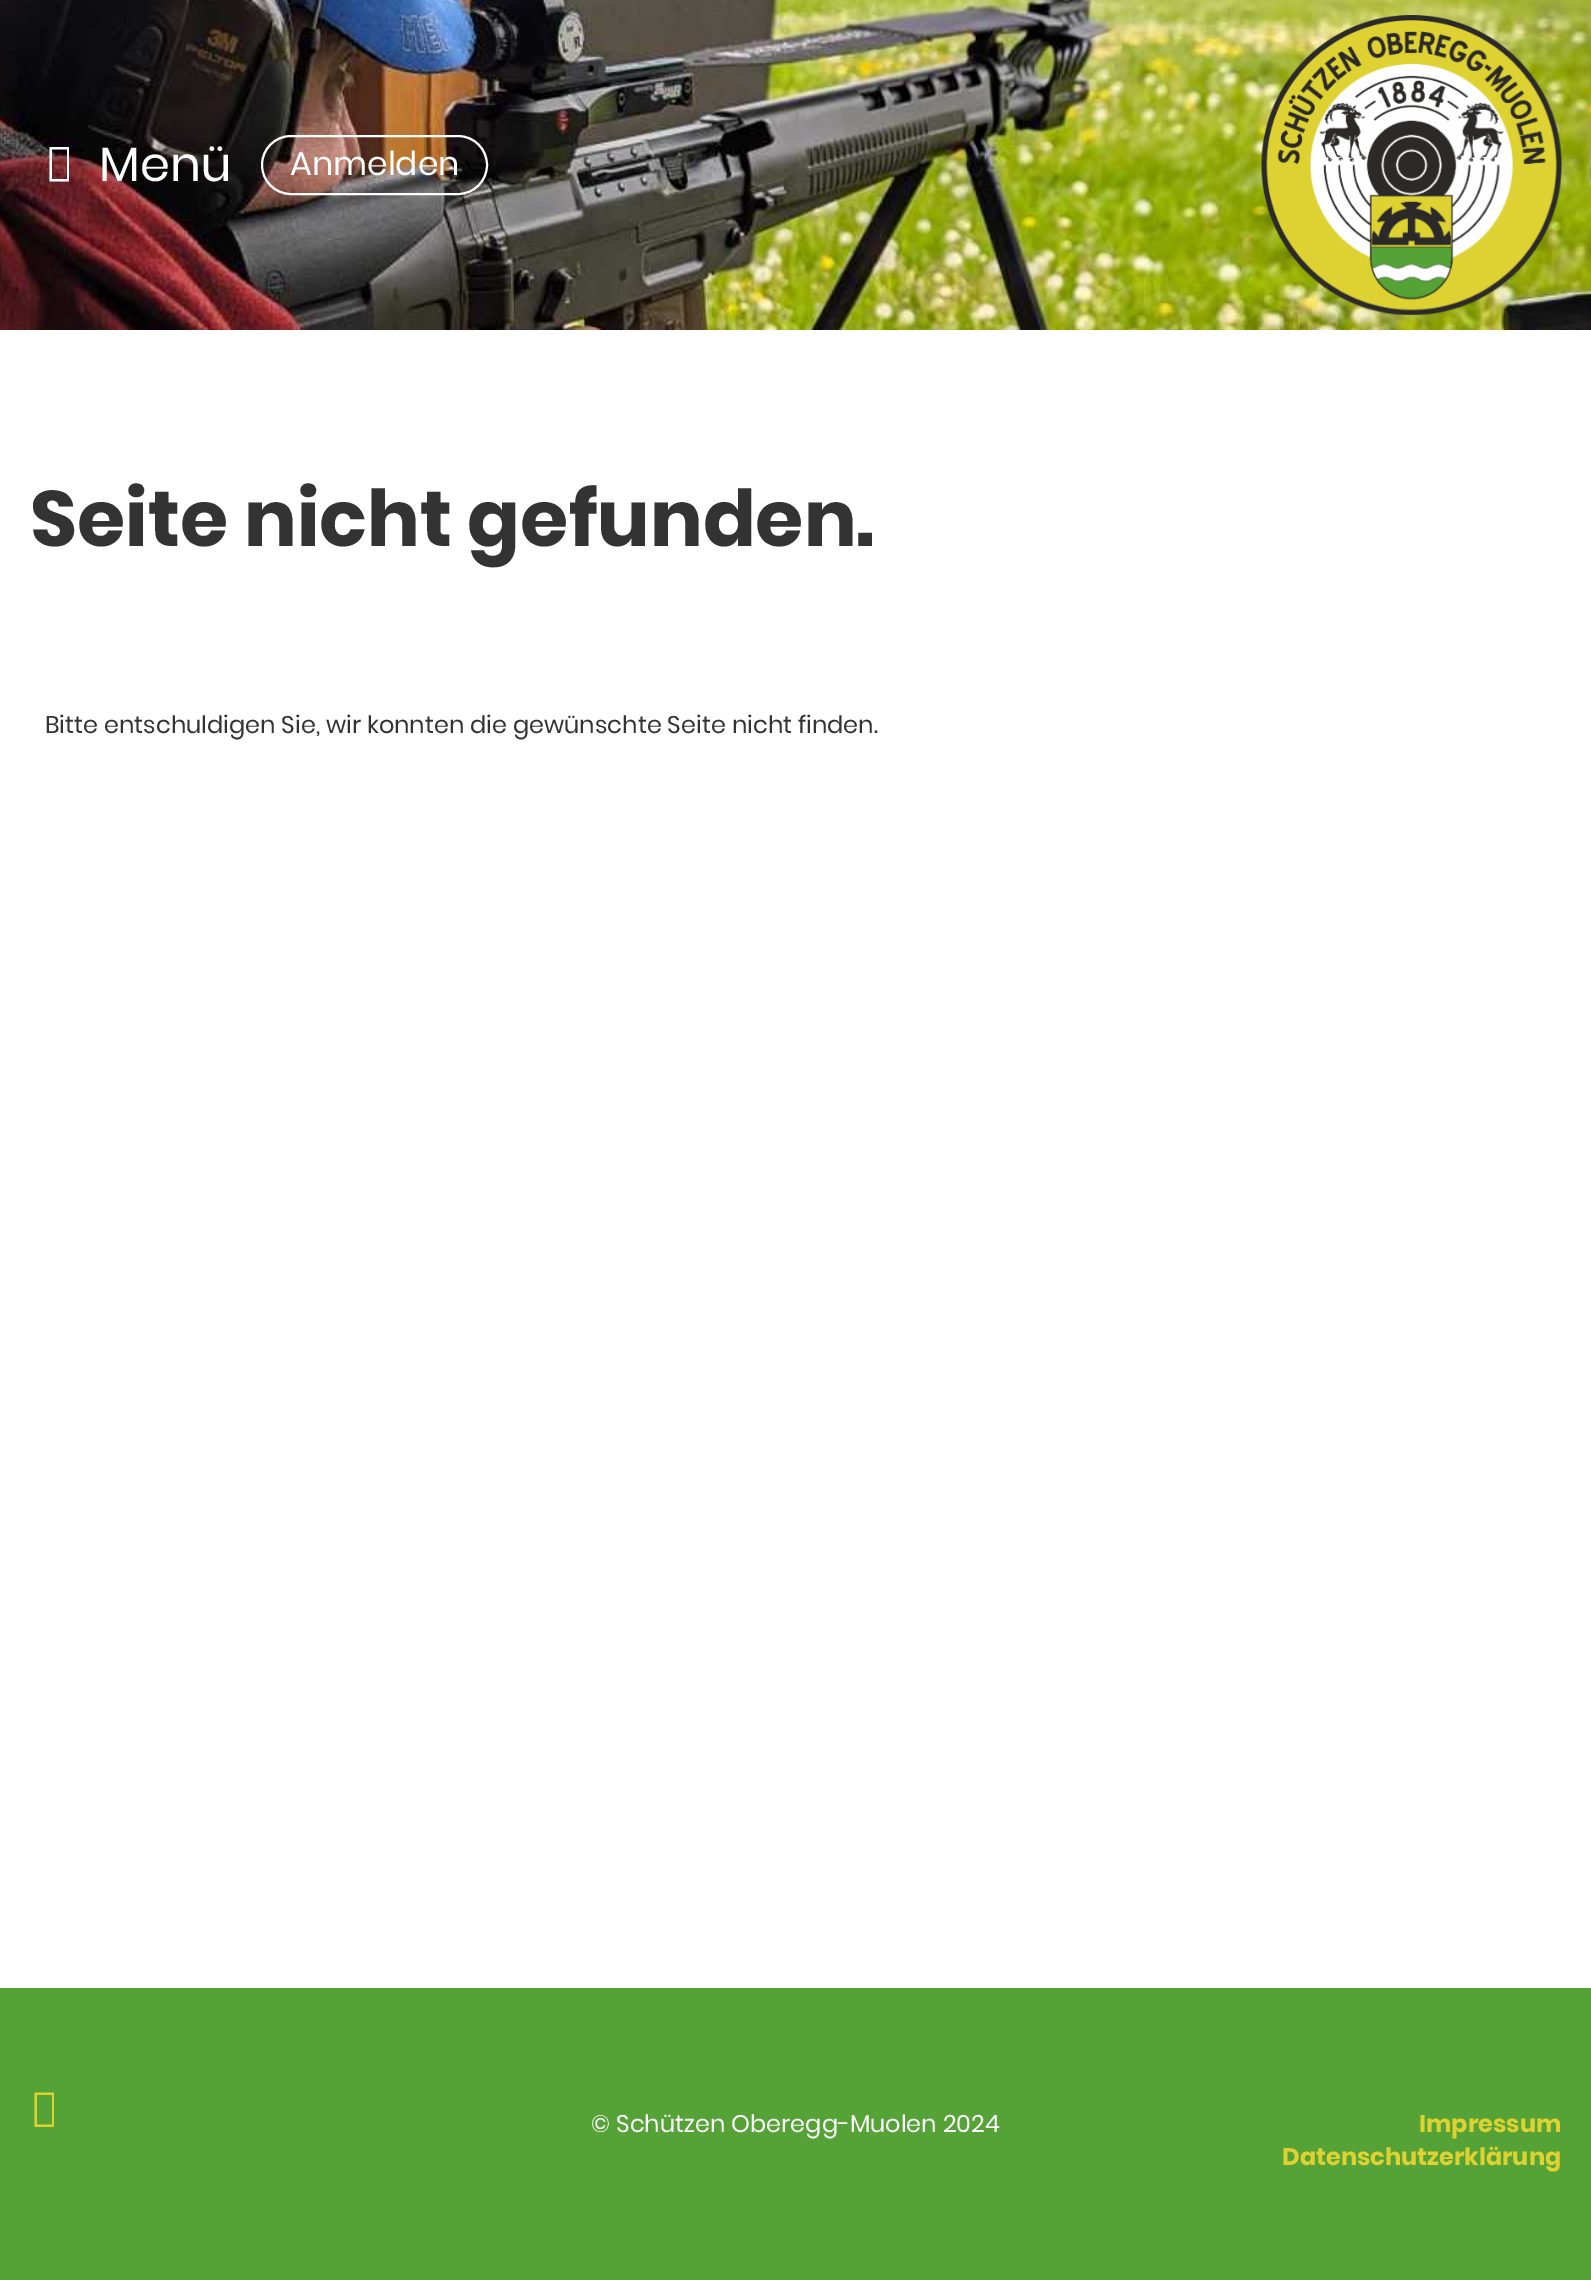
%!PS
<< /PageSize [1591 2280] >> setpagedevice
/rgb { 3 { 255 div 3 1 roll } repeat setrgbcolor } def
/font { [ exch dup neg 0 0 3 -1 roll 0 0 ] selectfont } def
/text { moveto show } def
/roundrect { 5 dict begin { /r /h /w /y /x } { exch def } forall
  x r add y moveto x w add y 2 copy h add r arct x w add y h add x 1 index r arct
  x y h add x y r arct x y 2 copy exch w add exch r arct closepath end } def
/picture { 5 dict begin { /h /w /y /x /name } { exch def } forall
  gsave x y translate w h scale
  w h 8 [w 0 0 h 0 0] name (r) file false 3 colorimage grestore end } def
0 2280 translate 1 -1 scale
4 setmiterlimit
255 255 255 rgb
0 0 1591 2280 rectfill
(img_02.rgb) 0 0 1591 330 picture
49.5 181.5 moveto 0 -34.5 rlineto 19.5 0 rlineto 0 34.5 rlineto closepath 52 179 moveto 15 0 rlineto 0 -29.5 rlineto -15 0 rlineto closepath fill
2 setlinewidth
262 136 225 58 29 roundrect stroke
(img_01.rgb) 1261 15 301 300 picture
85 162 55 rgb
0 1988 1591 292 rectfill
222 210 51 rgb
34.5 2127 moveto 0 -34.5 rlineto 19.5 0 rlineto 0 34.5 rlineto closepath 37 2124.5 moveto 15 0 rlineto 0 -29.5 rlineto -15 0 rlineto closepath fill
/Poppins-Regular 48 font
255 255 255 rgb
(Menü) 99 181 text
/Poppins-Regular 33 font
(Anmelden) 290 175 text
/Poppins-Bold 78 font
51 51 51 rgb
(Seite nicht gefunden.) 30 546 text
/Poppins-Regular 24 font
(Bitte entschuldigen Sie, wir konnten die gewünschte Seite nicht finden.) 45 733 text
255 255 255 rgb
(© Schützen Oberegg-Muolen 2024) 591 2132 text
/Poppins-Bold 24 font
222 210 51 rgb
(Impressum) 1419 2132 text
(Datenschutzerklärung) 1282 2165 text
showpage
